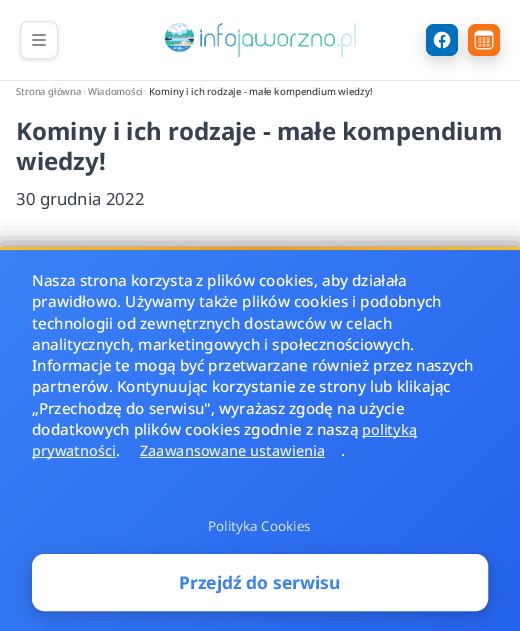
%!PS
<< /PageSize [520 631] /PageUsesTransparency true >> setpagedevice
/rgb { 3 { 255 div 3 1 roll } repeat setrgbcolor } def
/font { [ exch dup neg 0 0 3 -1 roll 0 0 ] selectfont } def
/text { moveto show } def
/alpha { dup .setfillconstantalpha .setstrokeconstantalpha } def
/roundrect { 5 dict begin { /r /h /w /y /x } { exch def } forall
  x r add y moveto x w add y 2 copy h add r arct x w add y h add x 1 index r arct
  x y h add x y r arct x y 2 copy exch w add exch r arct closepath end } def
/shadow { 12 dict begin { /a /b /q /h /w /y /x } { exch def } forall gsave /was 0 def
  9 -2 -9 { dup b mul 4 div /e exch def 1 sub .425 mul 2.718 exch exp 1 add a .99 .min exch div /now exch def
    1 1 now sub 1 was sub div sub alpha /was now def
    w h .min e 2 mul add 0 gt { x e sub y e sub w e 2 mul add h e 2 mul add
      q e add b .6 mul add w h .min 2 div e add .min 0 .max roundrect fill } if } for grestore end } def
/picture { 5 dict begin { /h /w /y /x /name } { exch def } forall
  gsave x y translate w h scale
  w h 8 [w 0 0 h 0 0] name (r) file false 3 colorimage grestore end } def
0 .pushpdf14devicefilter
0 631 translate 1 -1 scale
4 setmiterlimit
255 255 255 rgb
0 0 520 631 rectfill
229 231 235 rgb
0 80 520 1 rectfill
gsave
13 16 moveto 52 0 rlineto 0 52 rlineto -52 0 rlineto closepath 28 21 moveto 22 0 rlineto 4.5 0 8 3.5 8 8 rcurveto 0 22 rlineto 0 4.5 -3.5 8 -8 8 rcurveto -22 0 rlineto -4.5 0 -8 -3.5 -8 -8 rcurveto 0 -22 rlineto 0 -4.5 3.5 -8 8 -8 rcurveto closepath eoclip newpath
0 0 0 rgb
20 23 38 38 8 2 0.1 shadow
grestore
228 228 231 rgb
20.5 21.5 37 37 7.5 roundrect stroke
(img_01.rgb) 32 34 14 12 picture
(img_02.rgb) 164 23 192 34 picture
0 0 0 rgb
426 30 32 32 8 7 0.15 shadow
0 112 189 rgb
426 24 32 32 8 roundrect fill
0 0 0 rgb
468 30 32 32 8 7 0.15 shadow
(img_03.rgb) 433 31 18 18 picture
249 115 22 rgb
468 24 32 32 8 roundrect fill
(img_04.rgb) 474 30 20 20 picture
0 0 0 rgb
0 243 520 384 0 10 0.4 shadow
gsave 0 250 moveto 520 0 rlineto 0 381 rlineto -520 0 rlineto closepath clip newpath
<< /ShadingType 2 /ColorSpace /DeviceRGB /Coords [35 215 485 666] /Extend [true true] /Function << /FunctionType 2 /Domain [0 1] /C0 [0.231 0.51 0.965] /C1 [0.145 0.388 0.922] /N 1 >> >> shfill grestore
gsave 0 247 moveto 520 0 rlineto 0 3 rlineto -520 0 rlineto closepath clip newpath
<< /ShadingType 2 /ColorSpace /DeviceRGB /Coords [0 249 520 248] /Extend [true true] /Function << /FunctionType 3 /Domain [0 1] /Functions [<< /FunctionType 2 /Domain [0 1] /C0 [0.984 0.749 0.141] /C1 [0.961 0.62 0.043] /N 1 >> << /FunctionType 2 /Domain [0 1] /C0 [0.961 0.62 0.043] /C1 [0.984 0.749 0.141] /N 1 >>] /Bounds [0.5] /Encode [0 1 0 1] >> >> shfill grestore
234 241 253 rgb
362 436 55 1 rectfill
0.9 alpha
255 255 255 rgb
32 457 84 1 rectfill
140 457 185 1 rectfill
1 alpha
0 0 0 rgb
32 558 456 57 12 7.5 0.2 shadow
255 255 255 rgb
33 555 454 55 11 roundrect gsave fill grestore
2 setlinewidth
stroke
/NotoSans-Regular 9.6 font
113 113 122 rgb
(Strona główna) 16 95 text
/NotoSans-Light 12 font
212 212 216 rgb
(›) 83 96 text
/NotoSans-Regular 9.6 font
113 113 122 rgb
(Wiadomości) 88 95 text
/NotoSans-Light 12 font
212 212 216 rgb
(›) 144 96 text
/NotoSans-Medium 9.6 font
63 63 70 rgb
(Kominy i ich rodzaje - małe kompendium wiedzy!) 149 95 text
/NotoSans-Bold 24 font
55 65 81 rgb
(Kominy i ich rodzaje - małe kompendium) 16 140 text
(wiedzy!) 16 170 text
/NotoSans-Regular 16.75 font
(30 grudnia 2022) 16 205 text
/NotoSans-Medium 15.2 font
255 255 255 rgb
(Nasza strona korzysta z plików cookies, aby działała) 32 286 text
(prawidłowo. Używamy także plików cookies i podobnych) 32 307 text
(technologii od zewnętrznych dostawców w celach) 32 329 text
(analitycznych, marketingowych i społecznościowych.) 32 350 text
(Informacje te mogą być przetwarzane również przez naszych) 32 371 text
(partnerów. Kontynuując korzystanie ze strony lub klikając) 32 392 text
(„Przechodzę do serwisu", wyrażasz zgodę na użycie) 32 414 text
(dodatkowych plików cookies zgodnie z naszą) 32 435 text
/NotoSans-Medium 14.4 font
234 241 253 rgb
(polityką) 362 435 text
(prywatności) 32 456 text
/NotoSans-Medium 15.2 font
255 255 255 rgb
(.) 116 456 text
/NotoSans-Medium 14.4 font
234 241 253 rgb
(Zaawansowane ustawienia) 140 456 text
/NotoSans-Medium 15.2 font
255 255 255 rgb
(.) 341 456 text
/NotoSans-Regular 13.5 font
215 228 252 rgb
(Polityka Cookies) 208 531 text
/NotoSans-Bold 17.5 font
59 130 246 rgb
(Przejdź do serwisu) 179 589 text
.poppdf14devicefilter showpage
